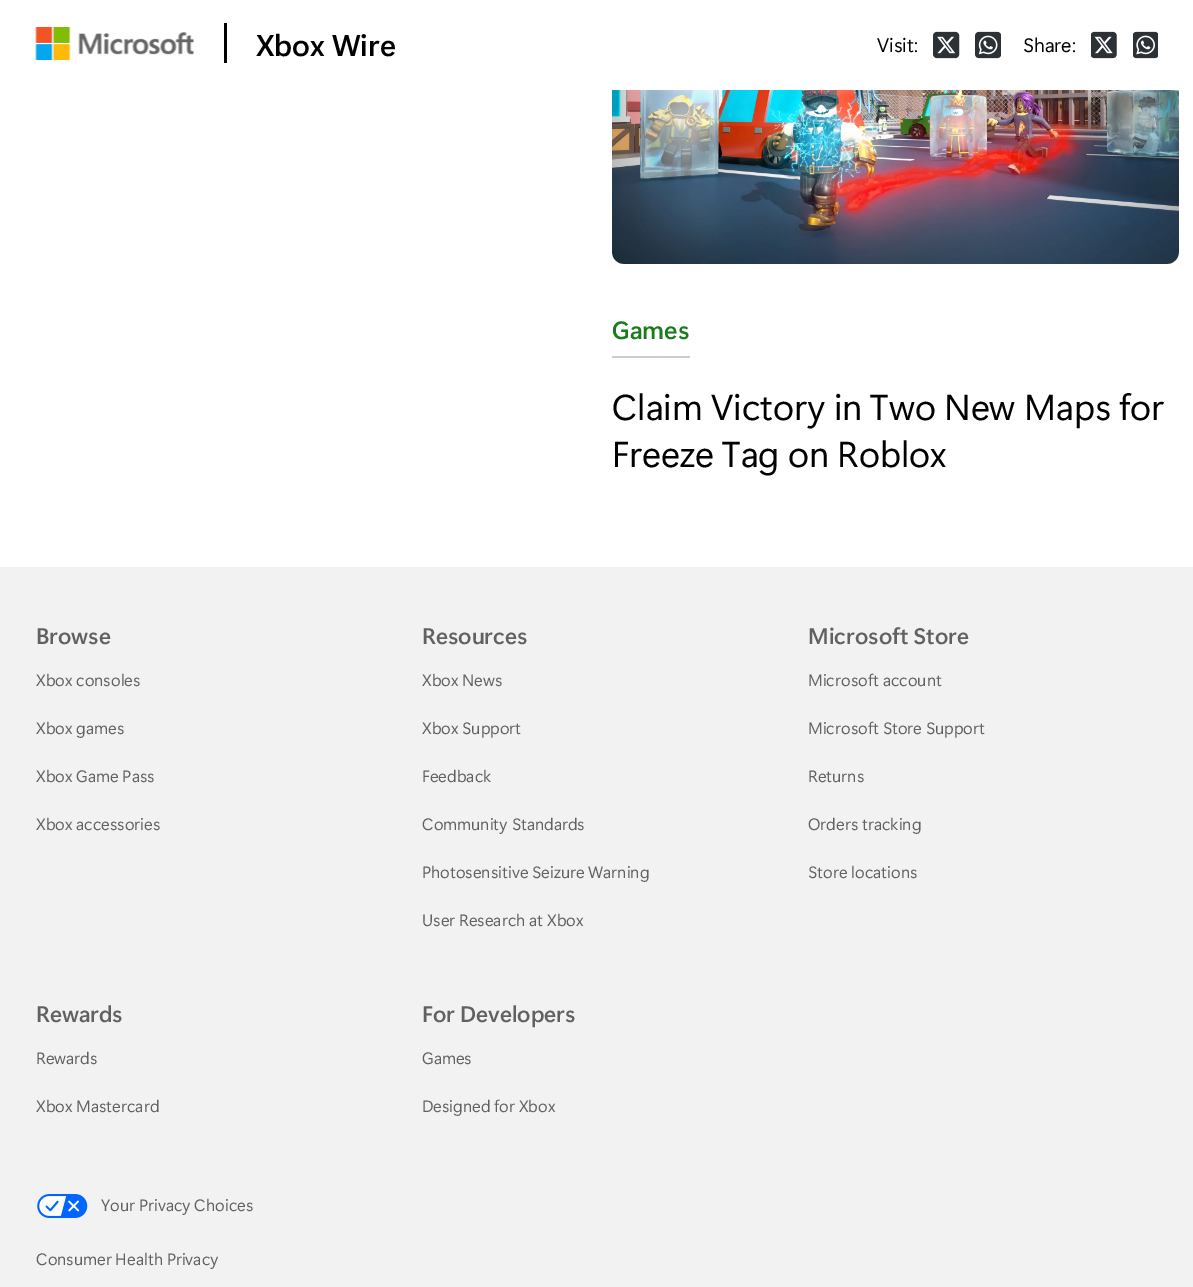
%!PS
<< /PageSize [1193 1287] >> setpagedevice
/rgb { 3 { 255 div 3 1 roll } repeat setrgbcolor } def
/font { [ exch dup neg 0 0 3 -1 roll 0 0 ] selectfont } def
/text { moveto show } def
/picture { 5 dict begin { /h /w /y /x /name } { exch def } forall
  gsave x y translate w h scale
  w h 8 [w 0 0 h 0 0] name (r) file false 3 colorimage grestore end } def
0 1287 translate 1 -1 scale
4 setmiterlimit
255 255 255 rgb
0 0 1193 1287 rectfill
(img_01.rgb) 35 27 159 33 picture
0 0 0 rgb
224 23 3 40 rectfill
(img_02.rgb) 933 31 27 28 picture
(img_03.rgb) 975 31 26 28 picture
(img_04.rgb) 1091 31 26 28 picture
(img_05.rgb) 1133 31 25 28 picture
(img_06.rgb) 612 90 567 174 picture
204 204 204 rgb
612 356 78 2 rectfill
242 242 242 rgb
0 567 1193 720 rectfill
(img_07.rgb) 37 1194 51 24 picture
/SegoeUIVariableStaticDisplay-SemiBold 30 font
0 0 0 rgb
(Xbox Wire) 256 56 text
/SegoeUIVariableStaticDisplay-Regular 19.5 font
(Visit:) 877 52 text
(Share:) 1023 52 text
/SegoeUIVariableStaticDisplay-SemiBold 25 font
25 123 26 rgb
(Games) 612 339 text
/SegoeUIVariableStaticDisplay-Regular 36 font
0 0 0 rgb
(Claim Victory in Two New Maps for) 612 420 text
(Freeze Tag on Roblox) 612 467 text
/SegoeUIVariableStaticDisplay-SemiBold 22.5 font
97 97 97 rgb
(Browse) 36 644 text
/SegoeUIVariableStaticDisplay-Regular 16.5 font
(Xbox consoles) 36 686 text
(Xbox games) 36 734 text
(Xbox Game Pass) 36 782 text
(Xbox accessories) 36 830 text
/SegoeUIVariableStaticDisplay-SemiBold 22.5 font
(Resources) 422 644 text
/SegoeUIVariableStaticDisplay-Regular 16.5 font
(Xbox News) 422 686 text
(Xbox Support) 422 734 text
(Feedback) 422 782 text
(Community Standards) 422 830 text
(Photosensitive Seizure Warning) 422 878 text
(User Research at Xbox) 422 926 text
/SegoeUIVariableStaticDisplay-SemiBold 22.5 font
(Microsoft Store) 808 644 text
/SegoeUIVariableStaticDisplay-Regular 16.5 font
(Microsoft account) 808 686 text
(Microsoft Store Support) 808 734 text
(Returns) 808 782 text
(Orders tracking) 808 830 text
(Store locations) 808 878 text
/SegoeUIVariableStaticDisplay-SemiBold 22.5 font
(Rewards) 36 1022 text
/SegoeUIVariableStaticDisplay-Regular 16.5 font
(Rewards) 36 1064 text
(Xbox Mastercard) 36 1112 text
/SegoeUIVariableStaticDisplay-SemiBold 22.5 font
(For Developers) 422 1022 text
/SegoeUIVariableStaticDisplay-Regular 16.5 font
(Games) 422 1064 text
(Designed for Xbox) 422 1112 text
(Your Privacy Choices) 101 1211 text
(Consumer Health Privacy) 36 1265 text
showpage
